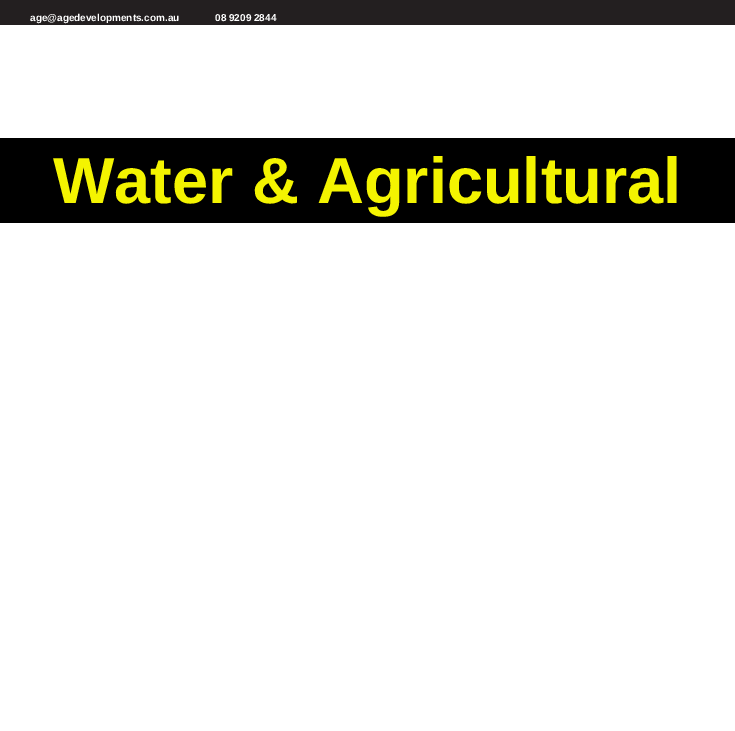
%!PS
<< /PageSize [735 731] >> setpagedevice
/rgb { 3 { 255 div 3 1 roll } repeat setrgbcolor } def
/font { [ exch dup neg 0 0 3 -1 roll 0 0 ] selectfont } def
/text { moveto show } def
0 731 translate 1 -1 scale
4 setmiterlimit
255 255 255 rgb
0 0 735 731 rectfill
35 31 32 rgb
0 0 735 25 rectfill
0 0 0 rgb
0 138 735 85 rectfill
/LiberationSans-Bold 10 font
255 255 255 rgb
(age@agedevelopments.com.au) 30 21 text
(08 9209 2844) 215 21 text
/LiberationSans-Bold 65 font
244 244 0 rgb
(Water & Agricultural) 53 203 text
showpage
